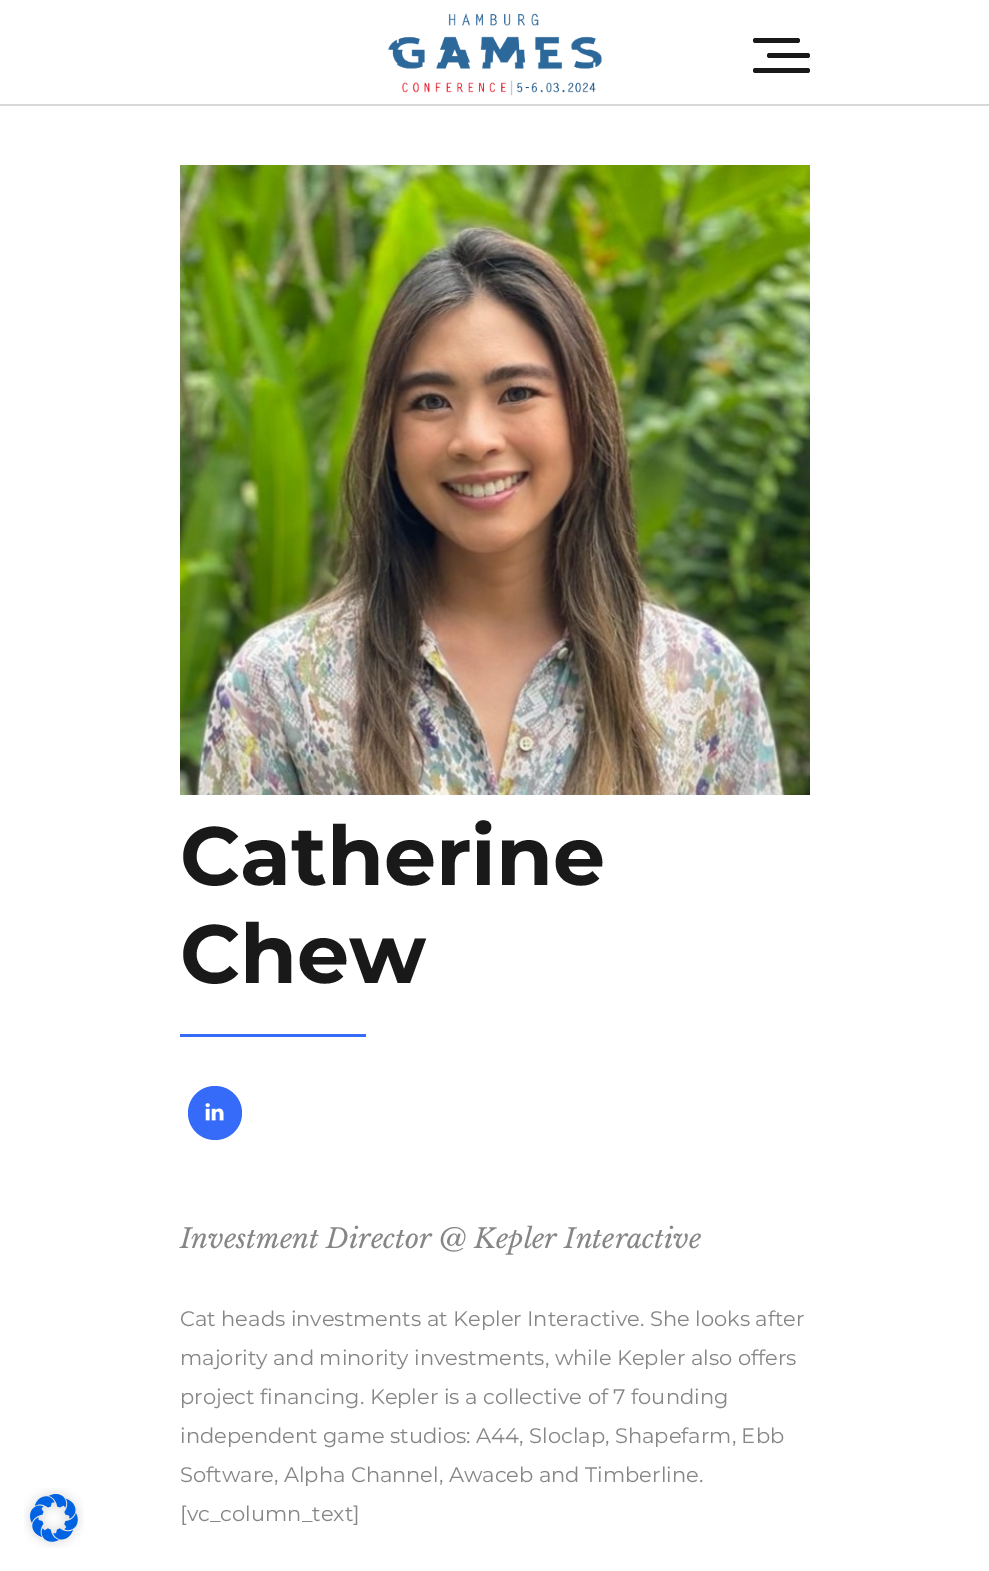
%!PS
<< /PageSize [989 1571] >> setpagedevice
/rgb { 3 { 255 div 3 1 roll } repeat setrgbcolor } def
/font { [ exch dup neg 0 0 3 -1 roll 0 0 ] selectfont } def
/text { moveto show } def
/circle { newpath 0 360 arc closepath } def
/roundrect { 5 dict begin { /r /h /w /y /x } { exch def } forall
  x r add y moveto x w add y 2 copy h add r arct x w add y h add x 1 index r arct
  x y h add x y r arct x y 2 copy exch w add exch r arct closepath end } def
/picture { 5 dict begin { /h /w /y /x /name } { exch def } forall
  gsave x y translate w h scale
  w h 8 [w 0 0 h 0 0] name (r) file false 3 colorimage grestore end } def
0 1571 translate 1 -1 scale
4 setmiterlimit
255 255 255 rgb
0 0 989 1571 rectfill
(img_01.rgb) 24 1488 60 60 picture
216 216 216 rgb
0 104 989 2 rectfill
(img_02.rgb) 388 13 214 83 picture
25 25 25 rgb
753 38 47 5 2.5 roundrect fill
767 53 43 5 2.5 roundrect fill
753 68 57 5 2.5 roundrect fill
(img_03.rgb) 180 165 630 630 picture
53 107 248 rgb
180 1034 186 3 rectfill
215 1113 27 circle fill
(img_04.rgb) 205 1103 19 18 picture
/Montserrat-Bold 82.5 font
25 25 25 rgb
(Catherine) 180 885 text
(Chew) 180 983 text
/LibreBaskerville-Italic 27 font
134 134 134 rgb
(Investment Director @ Kepler Interactive) 180 1248 text
/Montserrat-Regular 21 font
(Cat heads investments at Kepler Interactive. She looks after) 180 1326 text
(majority and minority investments, while Kepler also offers) 180 1365 text
(project financing. Kepler is a collective of 7 founding) 180 1404 text
(independent game studios: A44, Sloclap, Shapefarm, Ebb) 180 1443 text
(Software, Alpha Channel, Awaceb and Timberline.) 180 1482 text
([vc_column_text]) 180 1521 text
showpage
